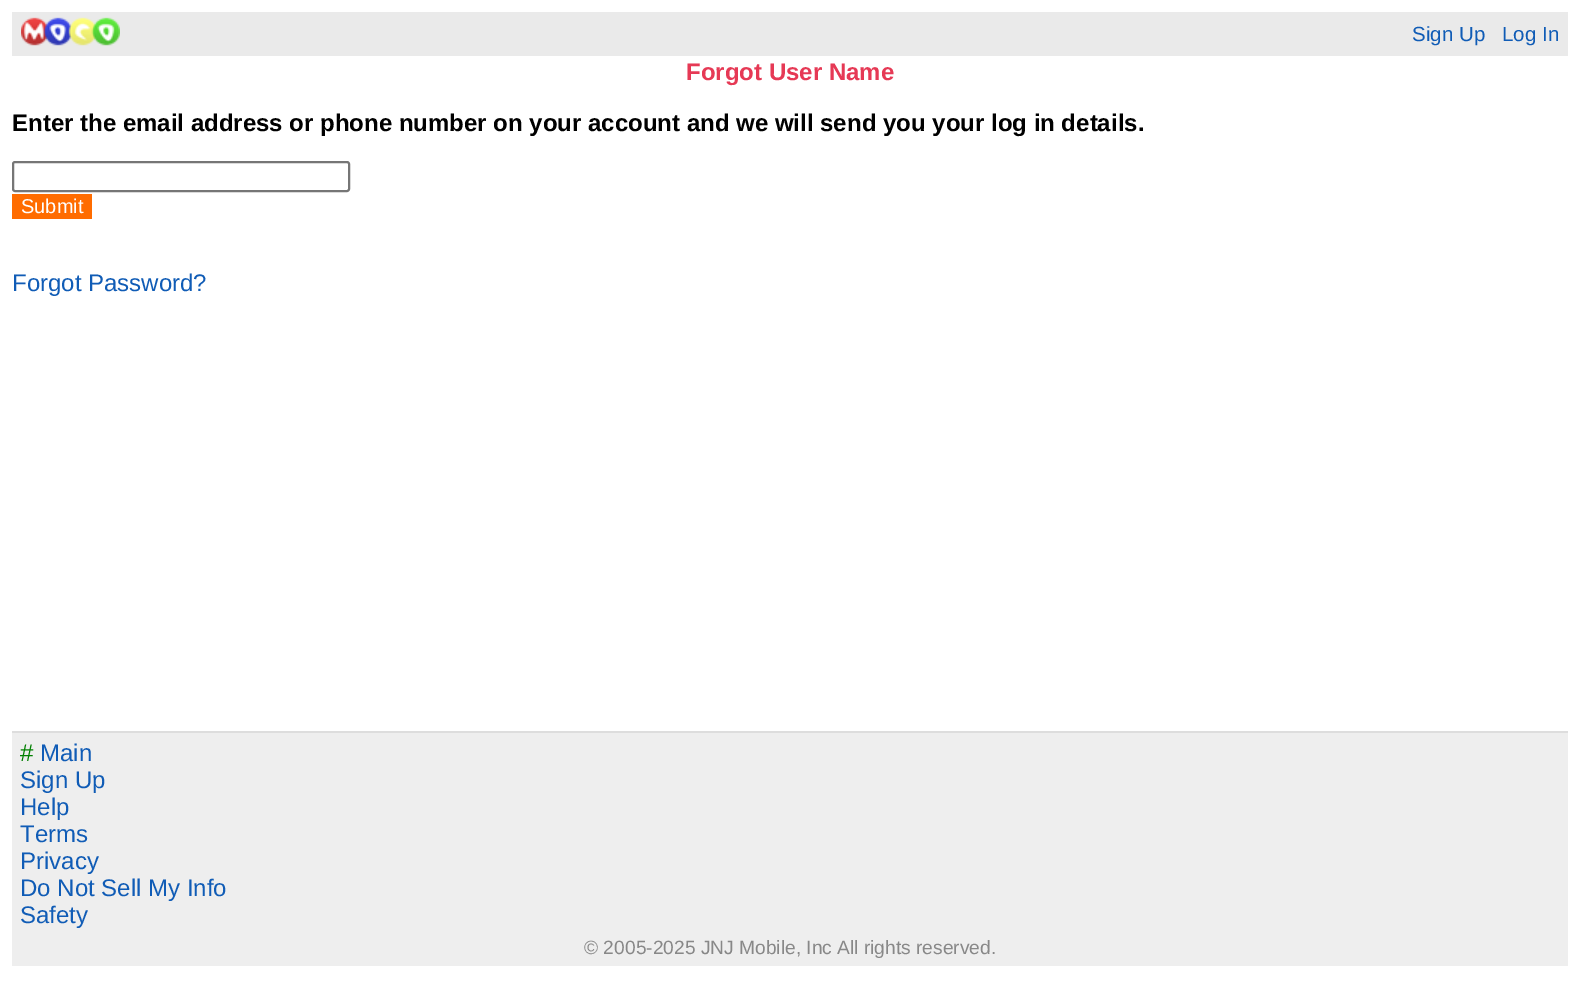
%!PS
<< /PageSize [1579 1004] >> setpagedevice
/rgb { 3 { 255 div 3 1 roll } repeat setrgbcolor } def
/font { [ exch dup neg 0 0 3 -1 roll 0 0 ] selectfont } def
/text { moveto show } def
/roundrect { 5 dict begin { /r /h /w /y /x } { exch def } forall
  x r add y moveto x w add y 2 copy h add r arct x w add y h add x 1 index r arct
  x y h add x y r arct x y 2 copy exch w add exch r arct closepath end } def
/picture { 5 dict begin { /h /w /y /x /name } { exch def } forall
  gsave x y translate w h scale
  w h 8 [w 0 0 h 0 0] name (r) file false 3 colorimage grestore end } def
0 1004 translate 1 -1 scale
4 setmiterlimit
255 255 255 rgb
0 0 1579 1004 rectfill
234 234 234 rgb
12 12 1556 44 rectfill
(img_01.rgb) 21 17 99 29 picture
118 118 118 rgb
2 setlinewidth
13 162 336 29 2 roundrect stroke
255 108 0 rgb
12 194 80 25 rectfill
238 238 238 rgb
12 733 1556 233 rectfill
221 221 221 rgb
12 731 1556 2 rectfill
/LiberationSans-Regular 20.5 font
16 92 182 rgb
(Sign Up) 1412 41 text
(Log In) 1502 41 text
/LiberationSans-Bold 24 font
230 57 85 rgb
(Forgot User Name) 686 80 text
0 0 0 rgb
(Enter the email address or phone number on your account and we will send you your log in details.) 12 131 text
/LiberationSans-Regular 20 font
255 255 255 rgb
(Submit) 21 213 text
/LiberationSans-Regular 24 font
16 92 182 rgb
(Forgot Password?) 12 291 text
0 128 0 rgb
(#) 20 761 text
16 92 182 rgb
(Main) 40 761 text
(Sign Up) 20 788 text
(Help) 20 815 text
(Terms) 20 842 text
(Privacy) 20 869 text
(Do Not Sell My Info) 20 896 text
(Safety) 20 923 text
/LiberationSans-Regular 19.2 font
136 136 136 rgb
(© 2005-2025 JNJ Mobile, Inc All rights reserved.) 584 954 text
showpage
